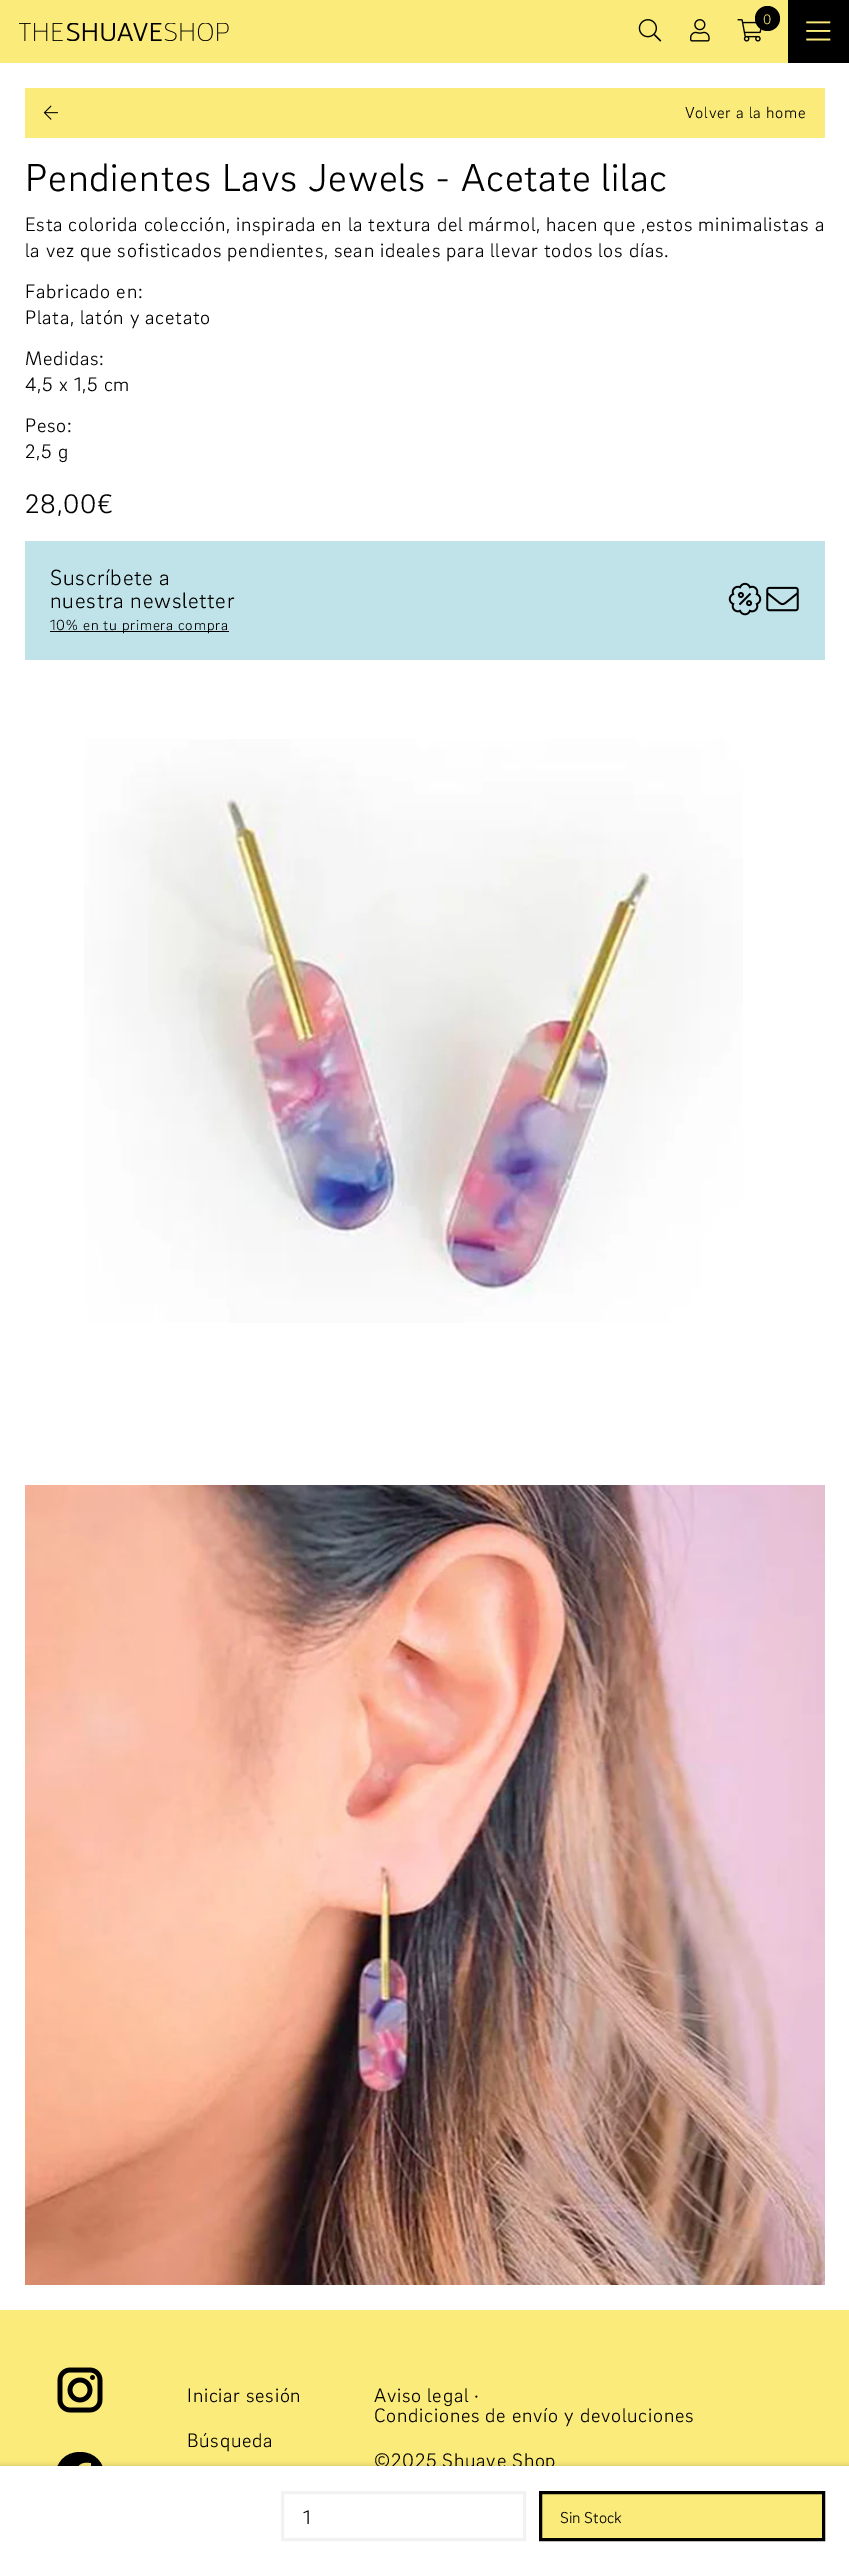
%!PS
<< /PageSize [849 2566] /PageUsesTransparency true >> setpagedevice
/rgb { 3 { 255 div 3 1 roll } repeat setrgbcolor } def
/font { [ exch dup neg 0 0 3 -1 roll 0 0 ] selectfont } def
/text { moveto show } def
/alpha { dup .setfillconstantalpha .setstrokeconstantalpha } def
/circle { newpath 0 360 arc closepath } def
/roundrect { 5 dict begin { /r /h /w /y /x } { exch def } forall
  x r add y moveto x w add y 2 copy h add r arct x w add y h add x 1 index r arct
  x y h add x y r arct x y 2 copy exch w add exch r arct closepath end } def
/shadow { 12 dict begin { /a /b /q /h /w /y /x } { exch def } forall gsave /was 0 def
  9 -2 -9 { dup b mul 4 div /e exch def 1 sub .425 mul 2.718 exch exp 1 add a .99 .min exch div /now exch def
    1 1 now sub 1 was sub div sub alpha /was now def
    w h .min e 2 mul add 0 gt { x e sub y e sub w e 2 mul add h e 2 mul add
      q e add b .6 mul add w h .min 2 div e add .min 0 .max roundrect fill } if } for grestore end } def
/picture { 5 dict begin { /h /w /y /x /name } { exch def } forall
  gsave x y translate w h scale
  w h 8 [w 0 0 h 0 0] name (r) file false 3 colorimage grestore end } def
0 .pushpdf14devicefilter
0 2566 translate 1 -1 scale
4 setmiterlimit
255 255 255 rgb
0 0 849 2566 rectfill
251 235 122 rgb
0 0 788 63 rectfill
(img_01.rgb) 638 19 24 23 picture
(img_02.rgb) 690 19 20 23 picture
(img_03.rgb) 737 19 25 23 picture
0 0 0 rgb
767.5 18.5 12.5 circle fill
(img_04.rgb) 19 23 210 18 picture
788 0 61 63 rectfill
(img_05.rgb) 806 21 25 20 picture
251 235 122 rgb
25 88 800 50 rectfill
(img_06.rgb) 43 105 15 15 picture
192 227 234 rgb
25 541 800 119 rectfill
0 0 0 rgb
50 631 179 1 rectfill
(img_07.rgb) 728 582 34 34 picture
(img_08.rgb) 766 586 33 26 picture
251 235 122 rgb
0 2310 849 156 rectfill
0 0 0 rgb
80 2452 moveto -31 0 -34 46 -4 50 rcurveto 0 -18 rlineto -6 0 rlineto 0 -6 rlineto 6 0 rlineto 0 -12 3 -17 15 -15 rcurveto 0 6 rlineto -8 0 -8 1 -8 9 rcurveto 8 0 rlineto -1 6 rlineto -7 0 rlineto 0 18 rlineto 31 -4 28 -50 -3 -50 rcurveto closepath fill
0 2466 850 100 0 3 0.2 shadow
(img_09.rgb) 84 739 659 584 picture
(img_10.rgb) 25 1485 800 800 picture
(img_11.rgb) 57 2367 46 46 picture
/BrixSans-Light 14 font
251 235 122 rgb
763 24 moveto 0.75 0 (0) ashow
/BrixSans-Light 16.25 font
0 0 0 rgb
685 118 moveto 0.75 0 (Volver a la home) ashow
/BrixSans-Light 40 font
25 191 moveto 0.75 0 (Pendientes Lavs Jewels - Acetate lilac) ashow
/BrixSans-Light 20 font
25 231 moveto 0.75 0 (Esta colorida colección, inspirada en la textura del mármol, hacen que ,estos minimalistas a) ashow
25 257 moveto 0.75 0 (la vez que sofisticados pendientes, sean ideales para llevar todos los días.) ashow
25 298 moveto 0.75 0 (Fabricado en:) ashow
25 324 moveto 0.75 0 (Plata, latón y acetato) ashow
25 365 moveto 0.75 0 (Medidas:) ashow
25 391 moveto 0.75 0 (4,5 x 1,5 cm) ashow
25 432 moveto 0.75 0 (Peso:) ashow
25 458 moveto 0.75 0 (2,5 g) ashow
/BrixSans-Light 27.5 font
25 513 moveto 0.75 0 (28,00€) ashow
/BrixSans-Light 22.5 font
50 585 moveto 0.75 0 (Suscríbete a) ashow
50 608 moveto 0.75 0 (nuestra newsletter) ashow
/BrixSans-Light 15 font
50 630 moveto 0.75 0 (10% en tu primera compra) ashow
/BrixSans-Light 20 font
187 2402 moveto 0.75 0 (Iniciar sesión) ashow
187 2447 moveto 0.75 0 (Búsqueda) ashow
374 2402 moveto 0.75 0 (Aviso legal ·) ashow
374 2422 moveto 0.75 0 (Condiciones de envío y devoluciones) ashow
374 2467 moveto 0.75 0 (©2025 Shuave Shop) ashow
255 255 255 rgb
0 2466 849 100 rectfill
242 242 242 rgb
3 setlinewidth
282.5 2492.5 242 47 rectstroke
0 0 0 rgb
(1) 303 2524 text
251 235 122 rgb
540.5 2492.5 moveto 283 0 rlineto 0 47 rlineto -283 0 rlineto closepath gsave fill grestore
0 0 0 rgb
stroke
/BrixSans-Light 16.25 font
(Sin Stock) 560 2523 text
.poppdf14devicefilter showpage
